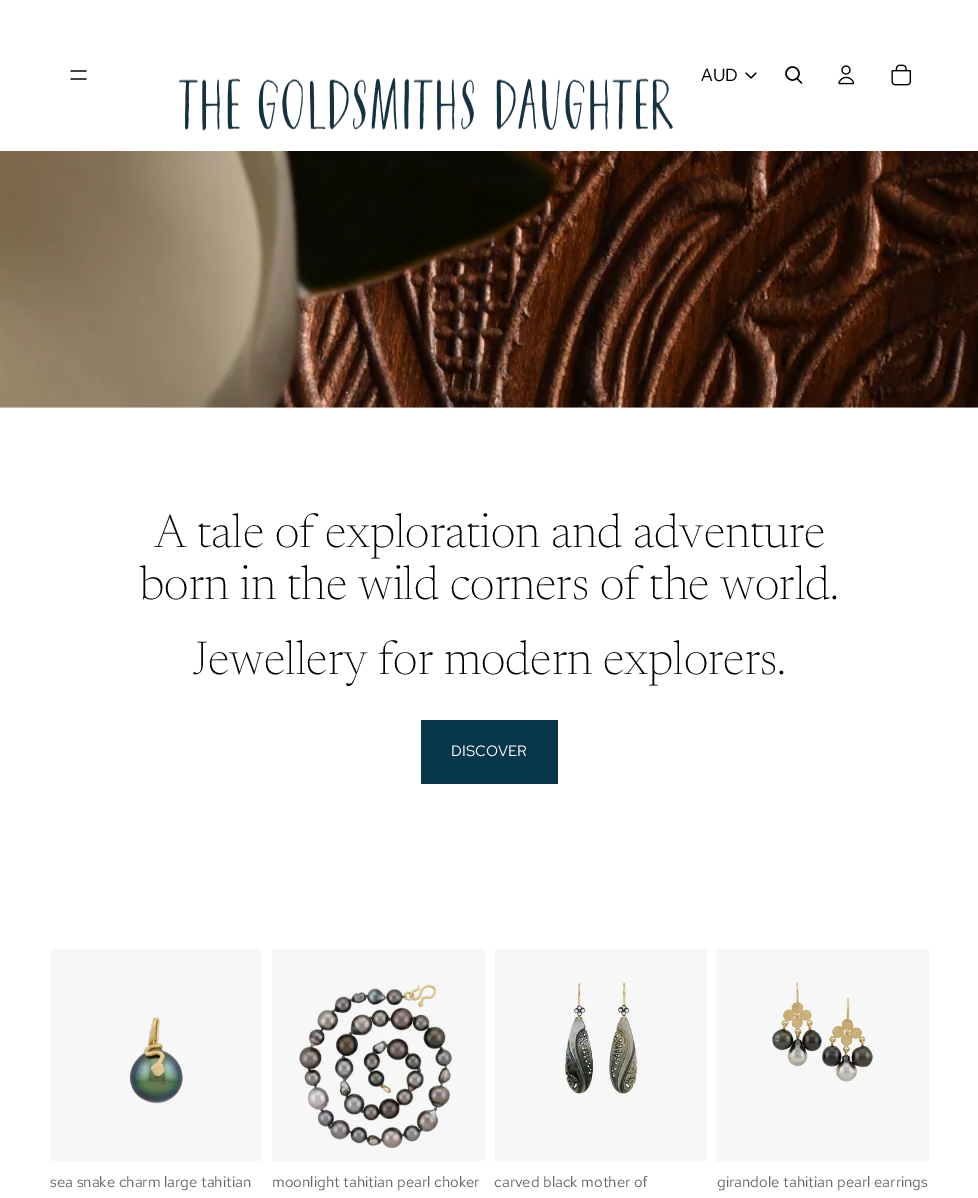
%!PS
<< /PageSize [978 1198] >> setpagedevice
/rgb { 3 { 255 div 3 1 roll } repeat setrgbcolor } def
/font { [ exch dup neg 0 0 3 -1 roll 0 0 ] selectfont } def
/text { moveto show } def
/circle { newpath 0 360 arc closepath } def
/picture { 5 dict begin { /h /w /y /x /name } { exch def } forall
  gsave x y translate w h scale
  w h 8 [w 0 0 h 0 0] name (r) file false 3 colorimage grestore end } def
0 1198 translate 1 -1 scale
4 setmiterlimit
255 255 255 rgb
0 0 978 1198 rectfill
0 0 0 rgb
1.2 setlinewidth
1 setlinecap
71 71 moveto 15 0 rlineto 71 79 moveto 15 0 rlineto stroke
1 setlinejoin
756 73 moveto -5 5 rlineto -5 -5 rlineto stroke
1.4 setlinewidth
0 setlinecap
0 setlinejoin
792.5 73.5 6.5 circle stroke
1 setlinecap
1 setlinejoin
797 78.5 moveto 4.5 4.5 rlineto stroke
(img_01.rgb) 838 65 17 20 picture
(img_02.rgb) 891 64 21 22 picture
(img_03.rgb) 179 77 494 54 picture
(img_04.rgb) 0 151 978 257 picture
8 54 74 rgb
421 720 137 64 rectfill
(img_05.rgb) 50 949 212 212 picture
(img_06.rgb) 272 949 213 212 picture
(img_07.rgb) 495 949 212 213 picture
(img_08.rgb) 716 949 213 213 picture
/RedHatText-Regular 17.5 font
0 0 0 rgb
(AUD) 701 81 text
/Newsreader-ExtraLight 47 font
(A tale of exploration and adventure) 154 547 text
(born in the wild corners of the world.) 140 599 text
(Jewellery for modern explorers.) 193 674 text
/RedHatText-Regular 15 font
255 255 255 rgb
(DISCOVER) 451 756 text
102 102 102 rgb
(sea snake charm large tahitian) 50 1187 text
(moonlight tahitian pearl choker) 272 1187 text
(carved black mother of) 494 1187 text
(girandole tahitian pearl earrings) 717 1187 text
showpage
